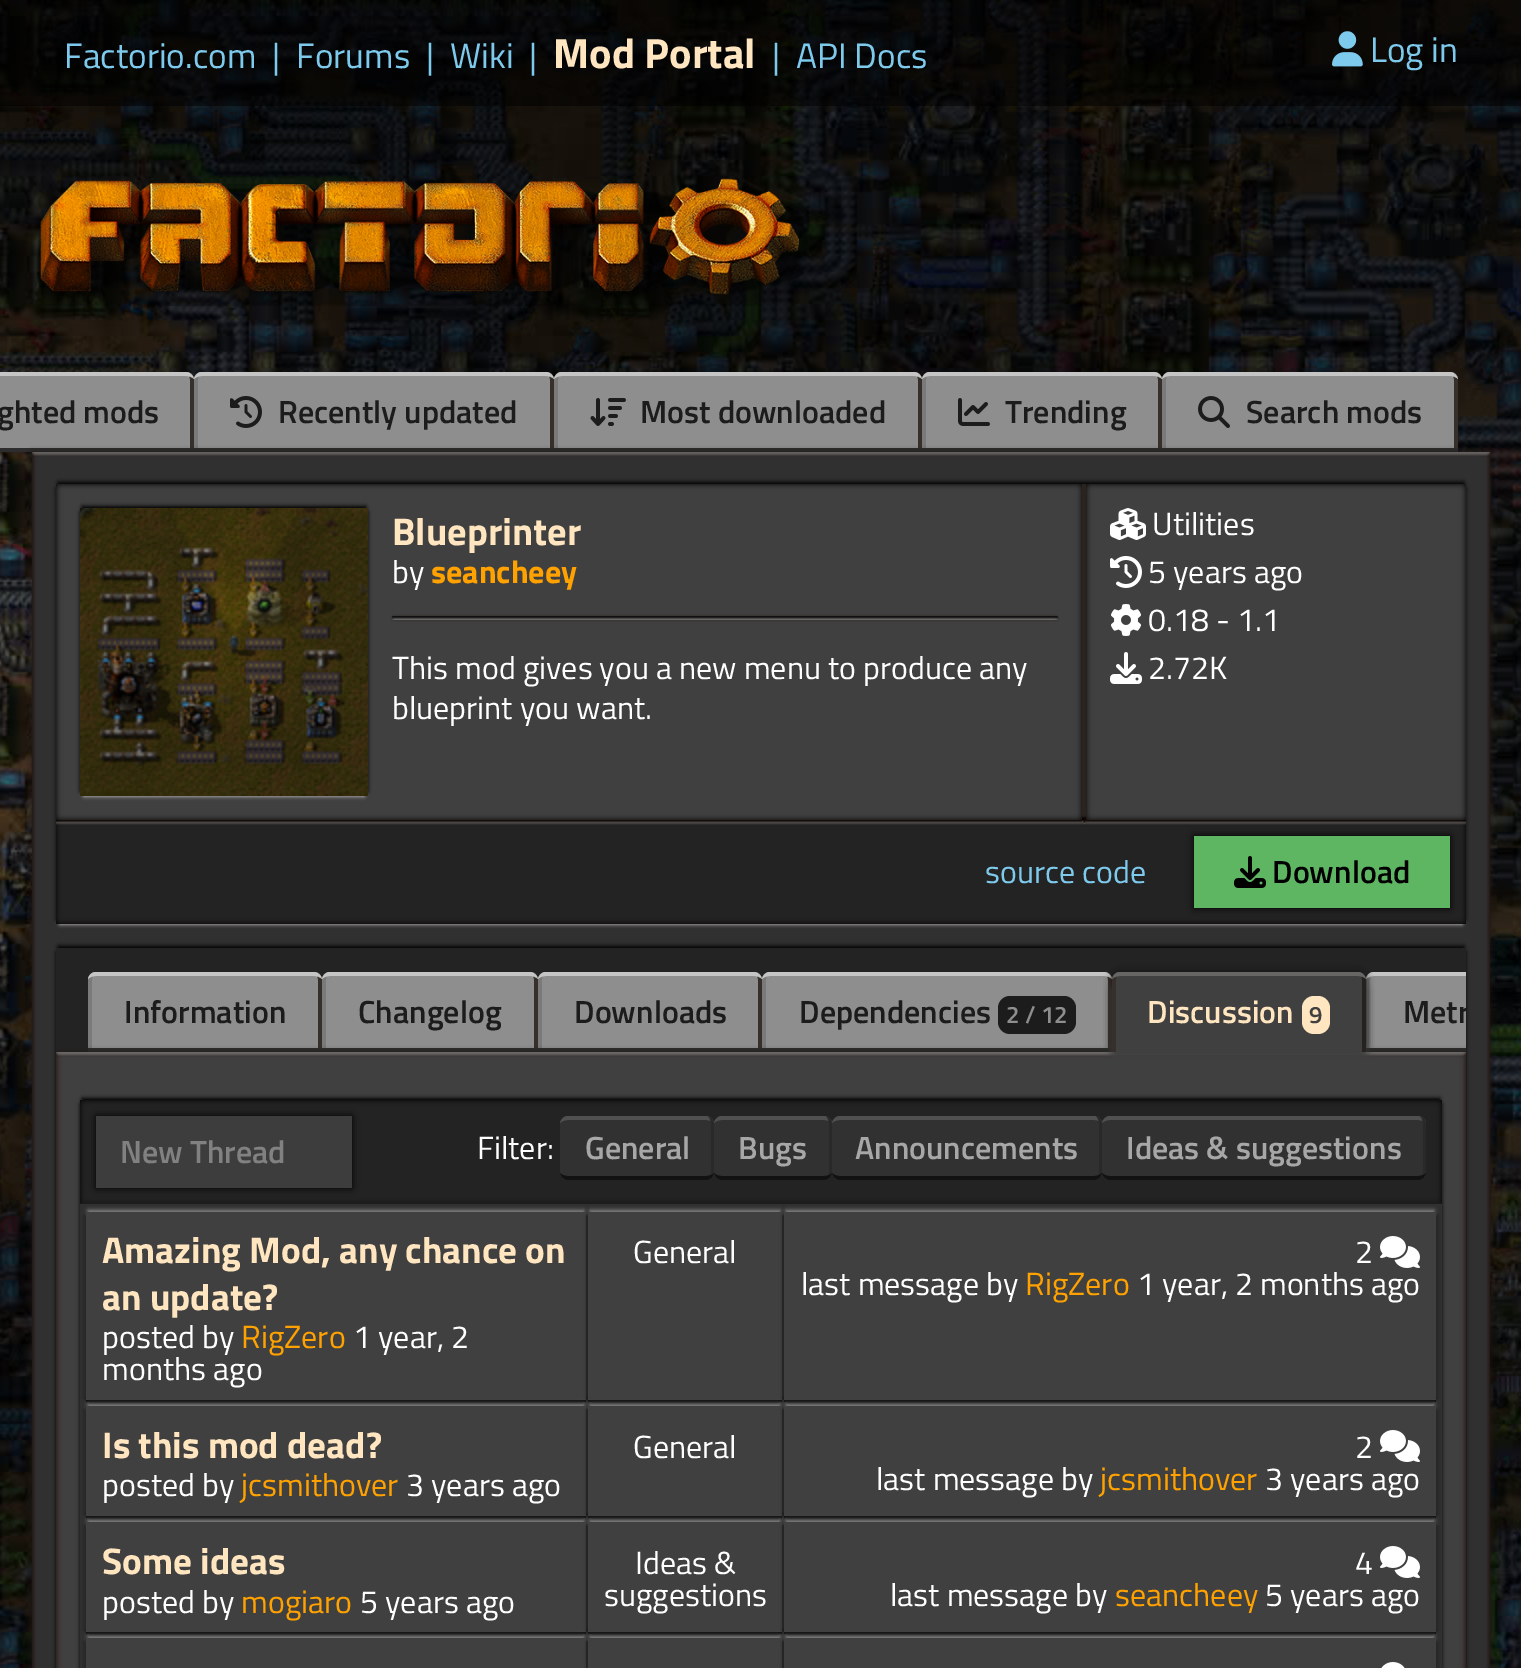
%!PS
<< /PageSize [1521 1668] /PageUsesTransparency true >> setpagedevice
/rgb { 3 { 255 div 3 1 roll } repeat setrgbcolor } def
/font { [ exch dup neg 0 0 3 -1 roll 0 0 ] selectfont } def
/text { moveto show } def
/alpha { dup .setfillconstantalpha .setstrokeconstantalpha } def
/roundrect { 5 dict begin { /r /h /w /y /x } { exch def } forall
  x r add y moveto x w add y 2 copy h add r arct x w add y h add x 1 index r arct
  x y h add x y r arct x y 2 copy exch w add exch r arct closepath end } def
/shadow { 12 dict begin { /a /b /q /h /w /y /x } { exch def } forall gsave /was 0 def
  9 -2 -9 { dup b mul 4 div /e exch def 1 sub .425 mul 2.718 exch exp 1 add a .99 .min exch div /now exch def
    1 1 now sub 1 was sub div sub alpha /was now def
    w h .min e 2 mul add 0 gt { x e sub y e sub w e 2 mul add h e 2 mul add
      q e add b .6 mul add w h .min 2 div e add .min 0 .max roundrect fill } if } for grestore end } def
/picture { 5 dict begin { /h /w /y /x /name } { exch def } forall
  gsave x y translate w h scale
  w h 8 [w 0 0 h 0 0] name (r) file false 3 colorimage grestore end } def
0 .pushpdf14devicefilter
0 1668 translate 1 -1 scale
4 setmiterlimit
255 255 255 rgb
0 0 1521 1668 rectfill
(img_01.rgb) 0 0 1521 1668 picture
0.5 alpha
0 0 0 rgb
0 0 1521 106 rectfill
1 alpha
(img_02.rgb) 1332 31 31 36 picture
(img_03.rgb) 39 178 783 128 picture
142 142 142 rgb
0 372 moveto 186 0 rlineto 4.5 0 8 3.5 8 8 rcurveto 0 72 rlineto -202 0 rlineto 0 -72 rlineto 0 -4.5 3.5 -8 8 -8 rcurveto closepath fill
55 47 42 rgb
190 452 moveto 4 0 rlineto 0 -72 rlineto 0 -4 -3 -7 -7 -8 rcurveto 2 2 3 5 3 8 rcurveto closepath fill
45 45 45 rgb
0 448 194 4 rectfill
197 197 197 rgb
-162 376 moveto 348 0 rlineto 3 0 6 1 8 3 rcurveto -1 -4 -4 -7 -8 -7 rcurveto -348 0 rlineto -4 0 -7 3 -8 7 rcurveto 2 -2 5 -3 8 -3 rcurveto closepath fill
142 142 142 rgb
202 372 moveto 344 0 rlineto 4.5 0 8 3.5 8 8 rcurveto 0 72 rlineto -360 0 rlineto 0 -72 rlineto 0 -4.5 3.5 -8 8 -8 rcurveto closepath fill
55 47 42 rgb
550 452 moveto 4 0 rlineto 0 -72 rlineto 0 -4 -3 -7 -7 -8 rcurveto 2 2 3 5 3 8 rcurveto closepath fill
122 122 122 rgb
201 372 moveto -4 1 -7 4 -7 8 rcurveto 0 72 rlineto 4 0 rlineto 0 -72 rlineto 0 -3 1 -6 3 -8 rcurveto closepath fill
45 45 45 rgb
194 448 360 4 rectfill
197 197 197 rgb
202 376 moveto 344 0 rlineto 3 0 6 1 8 3 rcurveto -1 -4 -4 -7 -8 -7 rcurveto -344 0 rlineto -4 0 -7 3 -8 7 rcurveto 2 -2 5 -3 8 -3 rcurveto closepath fill
(img_04.rgb) 230 396 32 32 picture
142 142 142 rgb
562 372 moveto 352 0 rlineto 4.5 0 8 3.5 8 8 rcurveto 0 72 rlineto -368 0 rlineto 0 -72 rlineto 0 -4.5 3.5 -8 8 -8 rcurveto closepath fill
55 47 42 rgb
918 452 moveto 4 0 rlineto 0 -72 rlineto 0 -4 -3 -7 -7 -8 rcurveto 2 2 3 5 3 8 rcurveto closepath fill
122 122 122 rgb
561 372 moveto -4 1 -7 4 -7 8 rcurveto 0 72 rlineto 4 0 rlineto 0 -72 rlineto 0 -3 1 -6 3 -8 rcurveto closepath fill
45 45 45 rgb
554 448 368 4 rectfill
197 197 197 rgb
562 376 moveto 352 0 rlineto 3 0 6 1 8 3 rcurveto -1 -4 -4 -7 -8 -7 rcurveto -352 0 rlineto -4 0 -7 3 -8 7 rcurveto 2 -2 5 -3 8 -3 rcurveto closepath fill
(img_05.rgb) 590 398 36 28 picture
142 142 142 rgb
930 372 moveto 224 0 rlineto 4.5 0 8 3.5 8 8 rcurveto 0 72 rlineto -240 0 rlineto 0 -72 rlineto 0 -4.5 3.5 -8 8 -8 rcurveto closepath fill
55 47 42 rgb
1158 452 moveto 4 0 rlineto 0 -72 rlineto 0 -4 -3 -7 -7 -8 rcurveto 2 2 3 5 3 8 rcurveto closepath fill
122 122 122 rgb
929 372 moveto -4 1 -7 4 -7 8 rcurveto 0 72 rlineto 4 0 rlineto 0 -72 rlineto 0 -3 1 -6 3 -8 rcurveto closepath fill
45 45 45 rgb
922 448 240 4 rectfill
197 197 197 rgb
930 376 moveto 224 0 rlineto 3 0 6 1 8 3 rcurveto -1 -4 -4 -7 -8 -7 rcurveto -224 0 rlineto -4 0 -7 3 -8 7 rcurveto 2 -2 5 -3 8 -3 rcurveto closepath fill
(img_06.rgb) 958 398 32 28 picture
142 142 142 rgb
1170 372 moveto 280 0 rlineto 4.5 0 8 3.5 8 8 rcurveto 0 72 rlineto -296 0 rlineto 0 -72 rlineto 0 -4.5 3.5 -8 8 -8 rcurveto closepath fill
55 47 42 rgb
1454 452 moveto 4 0 rlineto 0 -72 rlineto 0 -4 -3 -7 -7 -8 rcurveto 2 2 3 5 3 8 rcurveto closepath fill
122 122 122 rgb
1169 372 moveto -4 1 -7 4 -7 8 rcurveto 0 72 rlineto 4 0 rlineto 0 -72 rlineto 0 -3 1 -6 3 -8 rcurveto closepath fill
45 45 45 rgb
1162 448 296 4 rectfill
197 197 197 rgb
1170 376 moveto 280 0 rlineto 3 0 6 1 8 3 rcurveto -1 -4 -4 -7 -8 -7 rcurveto -280 0 rlineto -4 0 -7 3 -8 7 rcurveto 2 -2 5 -3 8 -3 rcurveto closepath fill
(img_07.rgb) 1198 396 32 32 picture
32 24 21 rgb
32 452 1458 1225 0 3 1 shadow
49 48 49 rgb
40 460 1442 1208 rectfill
(img_08.rgb) 32 452 1458 1216 picture
235 230 228 rgb
60 492 1402 432 0 2 1 shadow
15 13 12 rgb
64 488 1402 432 0 2 1 shadow
56 488 1402 432 0 2 1 shadow
0 0 0 rgb
58 482 1406 436 0 2 1 shadow
65 64 64 rgb
1082 484 4 334 rectfill
36 35 36 rgb
56 820 1410 104 rectfill
(img_17.rgb) 56 815 1410 109 picture
65 64 64 rgb
56 484 1026 336 rectfill
(img_09.rgb) 56 484 1031 341 picture
235 230 228 rgb
84 516 280 280 0 2 1 shadow
15 13 12 rgb
88 512 280 280 0 2 1 shadow
80 512 280 280 0 2 1 shadow
0 0 0 rgb
82 506 284 284 0 2 1 shadow
(img_10.rgb) 80 508 288 288 picture
(img_11.rgb) 390 614 670 8 picture
65 64 64 rgb
1086 484 380 336 rectfill
0 0 0 rgb
1194 836 256 72 0 4 1 shadow
(img_12.rgb) 1081 484 385 341 picture
(img_13.rgb) 1110 508 36 32 picture
(img_14.rgb) 1110 556 32 32 picture
(img_15.rgb) 1111 604 30 32 picture
(img_16.rgb) 1110 652 32 32 picture
94 182 99 rgb
1194 836 256 72 rectfill
(img_18.rgb) 1234 856 32 32 picture
15 13 12 rgb
64 952 1402 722 0 2 1 shadow
56 952 1402 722 0 2 1 shadow
0 0 0 rgb
58 946 1406 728 0 2 1 shadow
36 35 36 rgb
56 948 1410 104 rectfill
142 142 142 rgb
96 972 moveto 218 0 rlineto 4.5 0 8 3.5 8 8 rcurveto 0 72 rlineto -234 0 rlineto 0 -72 rlineto 0 -4.5 3.5 -8 8 -8 rcurveto closepath fill
55 47 42 rgb
318 1052 moveto 4 0 rlineto 0 -72 rlineto 0 -4 -3 -7 -7 -8 rcurveto 2 2 3 5 3 8 rcurveto closepath fill
122 122 122 rgb
95 972 moveto -4 1 -7 4 -7 8 rcurveto 0 72 rlineto 4 0 rlineto 0 -72 rlineto 0 -3 1 -6 3 -8 rcurveto closepath fill
45 45 45 rgb
88 1048 234 4 rectfill
197 197 197 rgb
96 976 moveto 218 0 rlineto 3 0 6 1 8 3 rcurveto -1 -4 -4 -7 -8 -7 rcurveto -218 0 rlineto -4 0 -7 3 -8 7 rcurveto 2 -2 5 -3 8 -3 rcurveto closepath fill
142 142 142 rgb
330 972 moveto 200 0 rlineto 4.5 0 8 3.5 8 8 rcurveto 0 72 rlineto -216 0 rlineto 0 -72 rlineto 0 -4.5 3.5 -8 8 -8 rcurveto closepath fill
55 47 42 rgb
534 1052 moveto 4 0 rlineto 0 -72 rlineto 0 -4 -3 -7 -7 -8 rcurveto 2 2 3 5 3 8 rcurveto closepath fill
122 122 122 rgb
329 972 moveto -4 1 -7 4 -7 8 rcurveto 0 72 rlineto 4 0 rlineto 0 -72 rlineto 0 -3 1 -6 3 -8 rcurveto closepath fill
45 45 45 rgb
322 1048 216 4 rectfill
197 197 197 rgb
330 976 moveto 200 0 rlineto 3 0 6 1 8 3 rcurveto -1 -4 -4 -7 -8 -7 rcurveto -200 0 rlineto -4 0 -7 3 -8 7 rcurveto 2 -2 5 -3 8 -3 rcurveto closepath fill
142 142 142 rgb
546 972 moveto 208 0 rlineto 4.5 0 8 3.5 8 8 rcurveto 0 72 rlineto -224 0 rlineto 0 -72 rlineto 0 -4.5 3.5 -8 8 -8 rcurveto closepath fill
55 47 42 rgb
758 1052 moveto 4 0 rlineto 0 -72 rlineto 0 -4 -3 -7 -7 -8 rcurveto 2 2 3 5 3 8 rcurveto closepath fill
122 122 122 rgb
545 972 moveto -4 1 -7 4 -7 8 rcurveto 0 72 rlineto 4 0 rlineto 0 -72 rlineto 0 -3 1 -6 3 -8 rcurveto closepath fill
45 45 45 rgb
538 1048 224 4 rectfill
197 197 197 rgb
546 976 moveto 208 0 rlineto 3 0 6 1 8 3 rcurveto -1 -4 -4 -7 -8 -7 rcurveto -208 0 rlineto -4 0 -7 3 -8 7 rcurveto 2 -2 5 -3 8 -3 rcurveto closepath fill
142 142 142 rgb
770 972 moveto 334 0 rlineto 4.5 0 8 3.5 8 8 rcurveto 0 72 rlineto -350 0 rlineto 0 -72 rlineto 0 -4.5 3.5 -8 8 -8 rcurveto closepath fill
55 47 42 rgb
1108 1052 moveto 4 0 rlineto 0 -72 rlineto 0 -4 -3 -7 -7 -8 rcurveto 2 2 3 5 3 8 rcurveto closepath fill
122 122 122 rgb
769 972 moveto -4 1 -7 4 -7 8 rcurveto 0 72 rlineto 4 0 rlineto 0 -72 rlineto 0 -3 1 -6 3 -8 rcurveto closepath fill
45 45 45 rgb
762 1048 350 4 rectfill
197 197 197 rgb
770 976 moveto 334 0 rlineto 3 0 6 1 8 3 rcurveto -1 -4 -4 -7 -8 -7 rcurveto -334 0 rlineto -4 0 -7 3 -8 7 rcurveto 2 -2 5 -3 8 -3 rcurveto closepath fill
29 28 29 rgb
998 996 78 38 12 roundrect fill
142 142 142 rgb
1374 972 moveto 92 0 rlineto 0 80 rlineto -100 0 rlineto 0 -72 rlineto 0 -4.5 3.5 -8 8 -8 rcurveto closepath fill
122 122 122 rgb
1373 972 moveto -4 1 -7 4 -7 8 rcurveto 0 72 rlineto 4 0 rlineto 0 -72 rlineto 0 -3 1 -6 3 -8 rcurveto closepath fill
45 45 45 rgb
1366 1048 100 4 rectfill
gsave
56 948 1410 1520 rectclip
197 197 197 rgb
1374 976 moveto 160 0 rlineto 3 0 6 1 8 3 rcurveto -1 -4 -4 -7 -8 -7 rcurveto -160 0 rlineto -4 0 -7 3 -8 7 rcurveto 2 -2 5 -3 8 -3 rcurveto closepath fill
grestore
gsave
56 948 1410 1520 rectclip
32 24 21 rgb
56 1052 1410 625 0 3 1 shadow
grestore
65 64 64 rgb
64 1060 1394 608 rectfill
(img_19.rgb) 56 1052 1410 616 picture
16 16 16 rgb
1112 972 254 80 8 4 1 shadow
65 64 64 rgb
1112 984 254 80 8 4 1 shadow
1120 972 moveto 238 0 rlineto 4.5 0 8 3.5 8 8 rcurveto 0 72 rlineto -254 0 rlineto 0 -72 rlineto 0 -4.5 3.5 -8 8 -8 rcurveto closepath fill
38 34 32 rgb
1362 1052 moveto 4 0 rlineto 0 -72 rlineto 0 -4 -3 -7 -7 -8 rcurveto 2 2 3 5 3 8 rcurveto closepath fill
55 47 43 rgb
1119 972 moveto -4 1 -7 4 -7 8 rcurveto 0 72 rlineto 4 0 rlineto 0 -72 rlineto 0 -3 1 -6 3 -8 rcurveto closepath fill
104 102 101 rgb
1120 976 moveto 238 0 rlineto 3 0 6 1 8 3 rcurveto -1 -4 -4 -7 -8 -7 rcurveto -238 0 rlineto -4 0 -7 3 -8 7 rcurveto 2 -2 5 -3 8 -3 rcurveto closepath fill
255 230 192 rgb
1302 996 28 38 12 roundrect fill
15 13 12 rgb
88 1104 1354 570 0 2 1 shadow
80 1104 1354 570 0 2 1 shadow
0 0 0 rgb
82 1098 1358 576 0 2 1 shadow
36 35 36 rgb
80 1100 1362 104 rectfill
(img_20.rgb) 80 1100 1362 104 picture
0 0 0 rgb
96 1116 256 72 0 4 1 shadow
61 61 61 rgb
96 1116 256 72 rectfill
49 49 49 rgb
560 1116 154 64 8 roundrect fill
81 80 80 rgb
568 1120 moveto 138 0 rlineto 3 0 6 1 8 3 rcurveto -1 -4 -4 -7 -8 -7 rcurveto -138 0 rlineto -4 0 -7 3 -8 7 rcurveto 2 -2 5 -3 8 -3 rcurveto closepath fill
41 41 41 rgb
708 1180 moveto 3 -1 6 -4 6 -8 rcurveto 0 -48 rlineto 0 -4 -3 -7 -6 -8 rcurveto 2 2 3 5 3 8 rcurveto 0 48 rlineto 0 3 -1 6 -3 8 rcurveto closepath fill
18 18 18 rgb
560 1173 moveto 1 4 4 7 8 7 rcurveto 138 0 rlineto 4 0 7 -3 8 -7 rcurveto -2 2 -5 3 -8 3 rcurveto -138 0 rlineto -3 0 -6 -1 -8 -3 rcurveto closepath fill
49 49 49 rgb
714 1116 118 64 8 roundrect fill
81 80 80 rgb
722 1120 moveto 102 0 rlineto 3 0 6 1 8 3 rcurveto -1 -4 -4 -7 -8 -7 rcurveto -102 0 rlineto -4 0 -7 3 -8 7 rcurveto 2 -2 5 -3 8 -3 rcurveto closepath fill
41 41 41 rgb
826 1180 moveto 3 -1 6 -4 6 -8 rcurveto 0 -48 rlineto 0 -4 -3 -7 -6 -8 rcurveto 2 2 3 5 3 8 rcurveto 0 48 rlineto 0 3 -1 6 -3 8 rcurveto closepath fill
18 18 18 rgb
714 1173 moveto 1 4 4 7 8 7 rcurveto 102 0 rlineto 4 0 7 -3 8 -7 rcurveto -2 2 -5 3 -8 3 rcurveto -102 0 rlineto -3 0 -6 -1 -8 -3 rcurveto closepath fill
49 49 49 rgb
832 1116 270 64 8 roundrect fill
81 80 80 rgb
840 1120 moveto 254 0 rlineto 3 0 6 1 8 3 rcurveto -1 -4 -4 -7 -8 -7 rcurveto -254 0 rlineto -4 0 -7 3 -8 7 rcurveto 2 -2 5 -3 8 -3 rcurveto closepath fill
41 41 41 rgb
1096 1180 moveto 3 -1 6 -4 6 -8 rcurveto 0 -48 rlineto 0 -4 -3 -7 -6 -8 rcurveto 2 2 3 5 3 8 rcurveto 0 48 rlineto 0 3 -1 6 -3 8 rcurveto closepath fill
18 18 18 rgb
832 1173 moveto 1 4 4 7 8 7 rcurveto 254 0 rlineto 4 0 7 -3 8 -7 rcurveto -2 2 -5 3 -8 3 rcurveto -254 0 rlineto -3 0 -6 -1 -8 -3 rcurveto closepath fill
49 49 49 rgb
1102 1116 324 64 8 roundrect fill
81 80 80 rgb
1110 1120 moveto 308 0 rlineto 3 0 6 1 8 3 rcurveto -1 -4 -4 -7 -8 -7 rcurveto -308 0 rlineto -4 0 -7 3 -8 7 rcurveto 2 -2 5 -3 8 -3 rcurveto closepath fill
41 41 41 rgb
1420 1180 moveto 3 -1 6 -4 6 -8 rcurveto 0 -48 rlineto 0 -4 -3 -7 -6 -8 rcurveto 2 2 3 5 3 8 rcurveto 0 48 rlineto 0 3 -1 6 -3 8 rcurveto closepath fill
18 18 18 rgb
1102 1173 moveto 1 4 4 7 8 7 rcurveto 308 0 rlineto 4 0 7 -3 8 -7 rcurveto -2 2 -5 3 -8 3 rcurveto -308 0 rlineto -3 0 -6 -1 -8 -3 rcurveto closepath fill
gsave
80 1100 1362 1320 rectclip
43 43 43 rgb
80 1204 1362 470 0 2 1 shadow
grestore
49 48 49 rgb
80 1204 1362 464 rectfill
0 0 0 rgb
90 1220 492 182 0 2 1 shadow
94 1216 492 182 0 2 1 shadow
86 1216 492 182 0 2 1 shadow
136 136 136 rgb
88 1210 496 186 0 2 1 shadow
65 64 64 rgb
86 1212 500 188 rectfill
17 17 17 rgb
86 1400 500 2 rectfill
0 0 0 rgb
592 1220 186 182 0 2 1 shadow
596 1216 186 182 0 2 1 shadow
588 1216 186 182 0 2 1 shadow
136 136 136 rgb
590 1210 190 186 0 2 1 shadow
65 64 64 rgb
588 1212 194 188 rectfill
17 17 17 rgb
588 1400 194 2 rectfill
0 0 0 rgb
788 1220 644 182 0 2 1 shadow
792 1216 644 182 0 2 1 shadow
784 1216 644 182 0 2 1 shadow
136 136 136 rgb
786 1210 648 186 0 2 1 shadow
65 64 64 rgb
784 1212 652 188 rectfill
17 17 17 rgb
784 1400 652 2 rectfill
(img_21.rgb) 1380 1236 40 32 picture
0 0 0 rgb
90 1414 492 104 0 2 1 shadow
94 1410 492 104 0 2 1 shadow
86 1410 492 104 0 2 1 shadow
136 136 136 rgb
88 1404 496 108 0 2 1 shadow
65 64 64 rgb
86 1406 500 110 rectfill
17 17 17 rgb
86 1516 500 2 rectfill
0 0 0 rgb
592 1414 186 104 0 2 1 shadow
596 1410 186 104 0 2 1 shadow
588 1410 186 104 0 2 1 shadow
136 136 136 rgb
590 1404 190 108 0 2 1 shadow
65 64 64 rgb
588 1406 194 110 rectfill
17 17 17 rgb
588 1516 194 2 rectfill
0 0 0 rgb
788 1414 644 104 0 2 1 shadow
792 1410 644 104 0 2 1 shadow
784 1410 644 104 0 2 1 shadow
136 136 136 rgb
786 1404 648 108 0 2 1 shadow
65 64 64 rgb
784 1406 652 110 rectfill
17 17 17 rgb
784 1516 652 2 rectfill
(img_21.rgb) 1380 1430 40 32 picture
0 0 0 rgb
90 1530 492 104 0 2 1 shadow
94 1526 492 104 0 2 1 shadow
86 1526 492 104 0 2 1 shadow
136 136 136 rgb
88 1520 496 108 0 2 1 shadow
65 64 64 rgb
86 1522 500 110 rectfill
17 17 17 rgb
86 1632 500 2 rectfill
0 0 0 rgb
592 1530 186 104 0 2 1 shadow
596 1526 186 104 0 2 1 shadow
588 1526 186 104 0 2 1 shadow
136 136 136 rgb
590 1520 190 108 0 2 1 shadow
65 64 64 rgb
588 1522 194 110 rectfill
17 17 17 rgb
588 1632 194 2 rectfill
0 0 0 rgb
788 1530 644 104 0 2 1 shadow
792 1526 644 104 0 2 1 shadow
784 1526 644 104 0 2 1 shadow
136 136 136 rgb
786 1520 648 108 0 2 1 shadow
65 64 64 rgb
784 1522 652 110 rectfill
17 17 17 rgb
784 1632 652 2 rectfill
(img_21.rgb) 1380 1546 40 32 picture
0 0 0 rgb
94 1642 492 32 0 2 1 shadow
86 1642 492 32 0 2 1 shadow
136 136 136 rgb
88 1636 496 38 0 2 1 shadow
65 64 64 rgb
86 1638 500 30 rectfill
0 0 0 rgb
596 1642 186 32 0 2 1 shadow
588 1642 186 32 0 2 1 shadow
136 136 136 rgb
590 1636 190 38 0 2 1 shadow
65 64 64 rgb
588 1638 194 30 rectfill
0 0 0 rgb
792 1642 644 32 0 2 1 shadow
784 1642 644 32 0 2 1 shadow
136 136 136 rgb
786 1636 648 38 0 2 1 shadow
65 64 64 rgb
784 1638 652 30 rectfill
(img_22.rgb) 1381 1662 24 6 picture
/TitilliumWeb-Regular 35.25 font
125 202 237 rgb
(Factorio.com) 64 68 text
(|) 272 68 text
(Forums) 296 68 text
(|) 426 68 text
(Wiki) 450 68 text
(|) 529 68 text
/TitilliumWeb-Bold 42.25 font
255 230 192 rgb
(Mod Portal) 553 68 text
/TitilliumWeb-Regular 35.25 font
125 202 237 rgb
(|) 772 68 text
(API Docs) 796 68 text
(Log in) 1370 62 text
/TitilliumWeb-SemiBold 32 font
29 28 29 rgb
(ghted mods) -3 423 text
(Recently updated) 278 423 text
(Most downloaded) 640 423 text
(Trending) 1005 423 text
(Search mods) 1246 423 text
/TitilliumWeb-Bold 38.5 font
255 230 192 rgb
(Blueprinter) 392 545 text
/TitilliumWeb-Regular 32 font
255 255 255 rgb
(by) 392 583 text
/TitilliumWeb-Bold 32 font
255 162 0 rgb
(seancheey) 431 583 text
/TitilliumWeb-Regular 32 font
255 255 255 rgb
(This mod gives you a new menu to produce any) 392 679 text
(blueprint you want.) 392 719 text
(Utilities) 1152 535 text
(5 years ago) 1148 583 text
(0.18 - 1.1) 1148 631 text
(2.72K) 1148 679 text
125 202 237 rgb
(source code) 985 883 text
/TitilliumWeb-SemiBold 32 font
0 0 0 rgb
(Download) 1272 883 text
29 28 29 rgb
(Information) 124 1023 text
(Changelog) 358 1023 text
(Downloads) 574 1023 text
(Dependencies) 799 1023 text
/TitilliumWeb-SemiBold 24 font
142 142 142 rgb
(2 / 12) 1006 1023 text
/TitilliumWeb-SemiBold 32 font
255 230 192 rgb
(Discussion) 1147 1023 text
/TitilliumWeb-SemiBold 24 font
65 64 64 rgb
(9) 1309 1023 text
gsave
56 948 1410 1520 rectclip
/TitilliumWeb-SemiBold 32 font
29 28 29 rgb
(Metr) 1403 1023 text
grestore
/TitilliumWeb-SemiBold 32 font
129 129 129 rgb
(New Thread) 120 1163 text
/TitilliumWeb-Regular 32 font
255 255 255 rgb
(Filter:) 477 1159 text
/TitilliumWeb-SemiBold 32 font
167 167 167 rgb
(General) 585 1159 text
(Bugs) 738 1159 text
(Announcements) 855 1159 text
(Ideas & suggestions) 1126 1159 text
/TitilliumWeb-Bold 37.1 font
255 230 192 rgb
(Amazing Mod, any chance on) 102 1263 text
(an update?) 102 1310 text
/TitilliumWeb-Regular 32 font
255 255 255 rgb
(posted by) 102 1348 text
255 162 0 rgb
(RigZero) 241 1348 text
255 255 255 rgb
(1 year, 2) 353 1348 text
(months ago) 102 1380 text
(General) 633 1263 text
(2) 1355 1263 text
(last message by) 801 1295 text
255 162 0 rgb
(RigZero) 1025 1295 text
255 255 255 rgb
(1 year, 2 months ago) 1137 1295 text
/TitilliumWeb-Bold 37.1 font
255 230 192 rgb
(Is this mod dead?) 102 1458 text
/TitilliumWeb-Regular 32 font
255 255 255 rgb
(posted by) 102 1496 text
255 162 0 rgb
(jcsmithover) 241 1496 text
255 255 255 rgb
(3 years ago) 406 1496 text
(General) 633 1458 text
(2) 1355 1458 text
(last message by) 876 1490 text
255 162 0 rgb
(jcsmithover) 1100 1490 text
255 255 255 rgb
(3 years ago) 1265 1490 text
/TitilliumWeb-Bold 37.1 font
255 230 192 rgb
(Some ideas) 102 1574 text
/TitilliumWeb-Regular 32 font
255 255 255 rgb
(posted by) 102 1613 text
255 162 0 rgb
(mogiaro) 241 1613 text
255 255 255 rgb
(5 years ago) 360 1613 text
(Ideas &) 635 1574 text
(suggestions) 604 1606 text
(4) 1355 1574 text
(last message by) 890 1606 text
255 162 0 rgb
(seancheey) 1115 1606 text
255 255 255 rgb
(5 years ago) 1265 1606 text
.poppdf14devicefilter showpage
